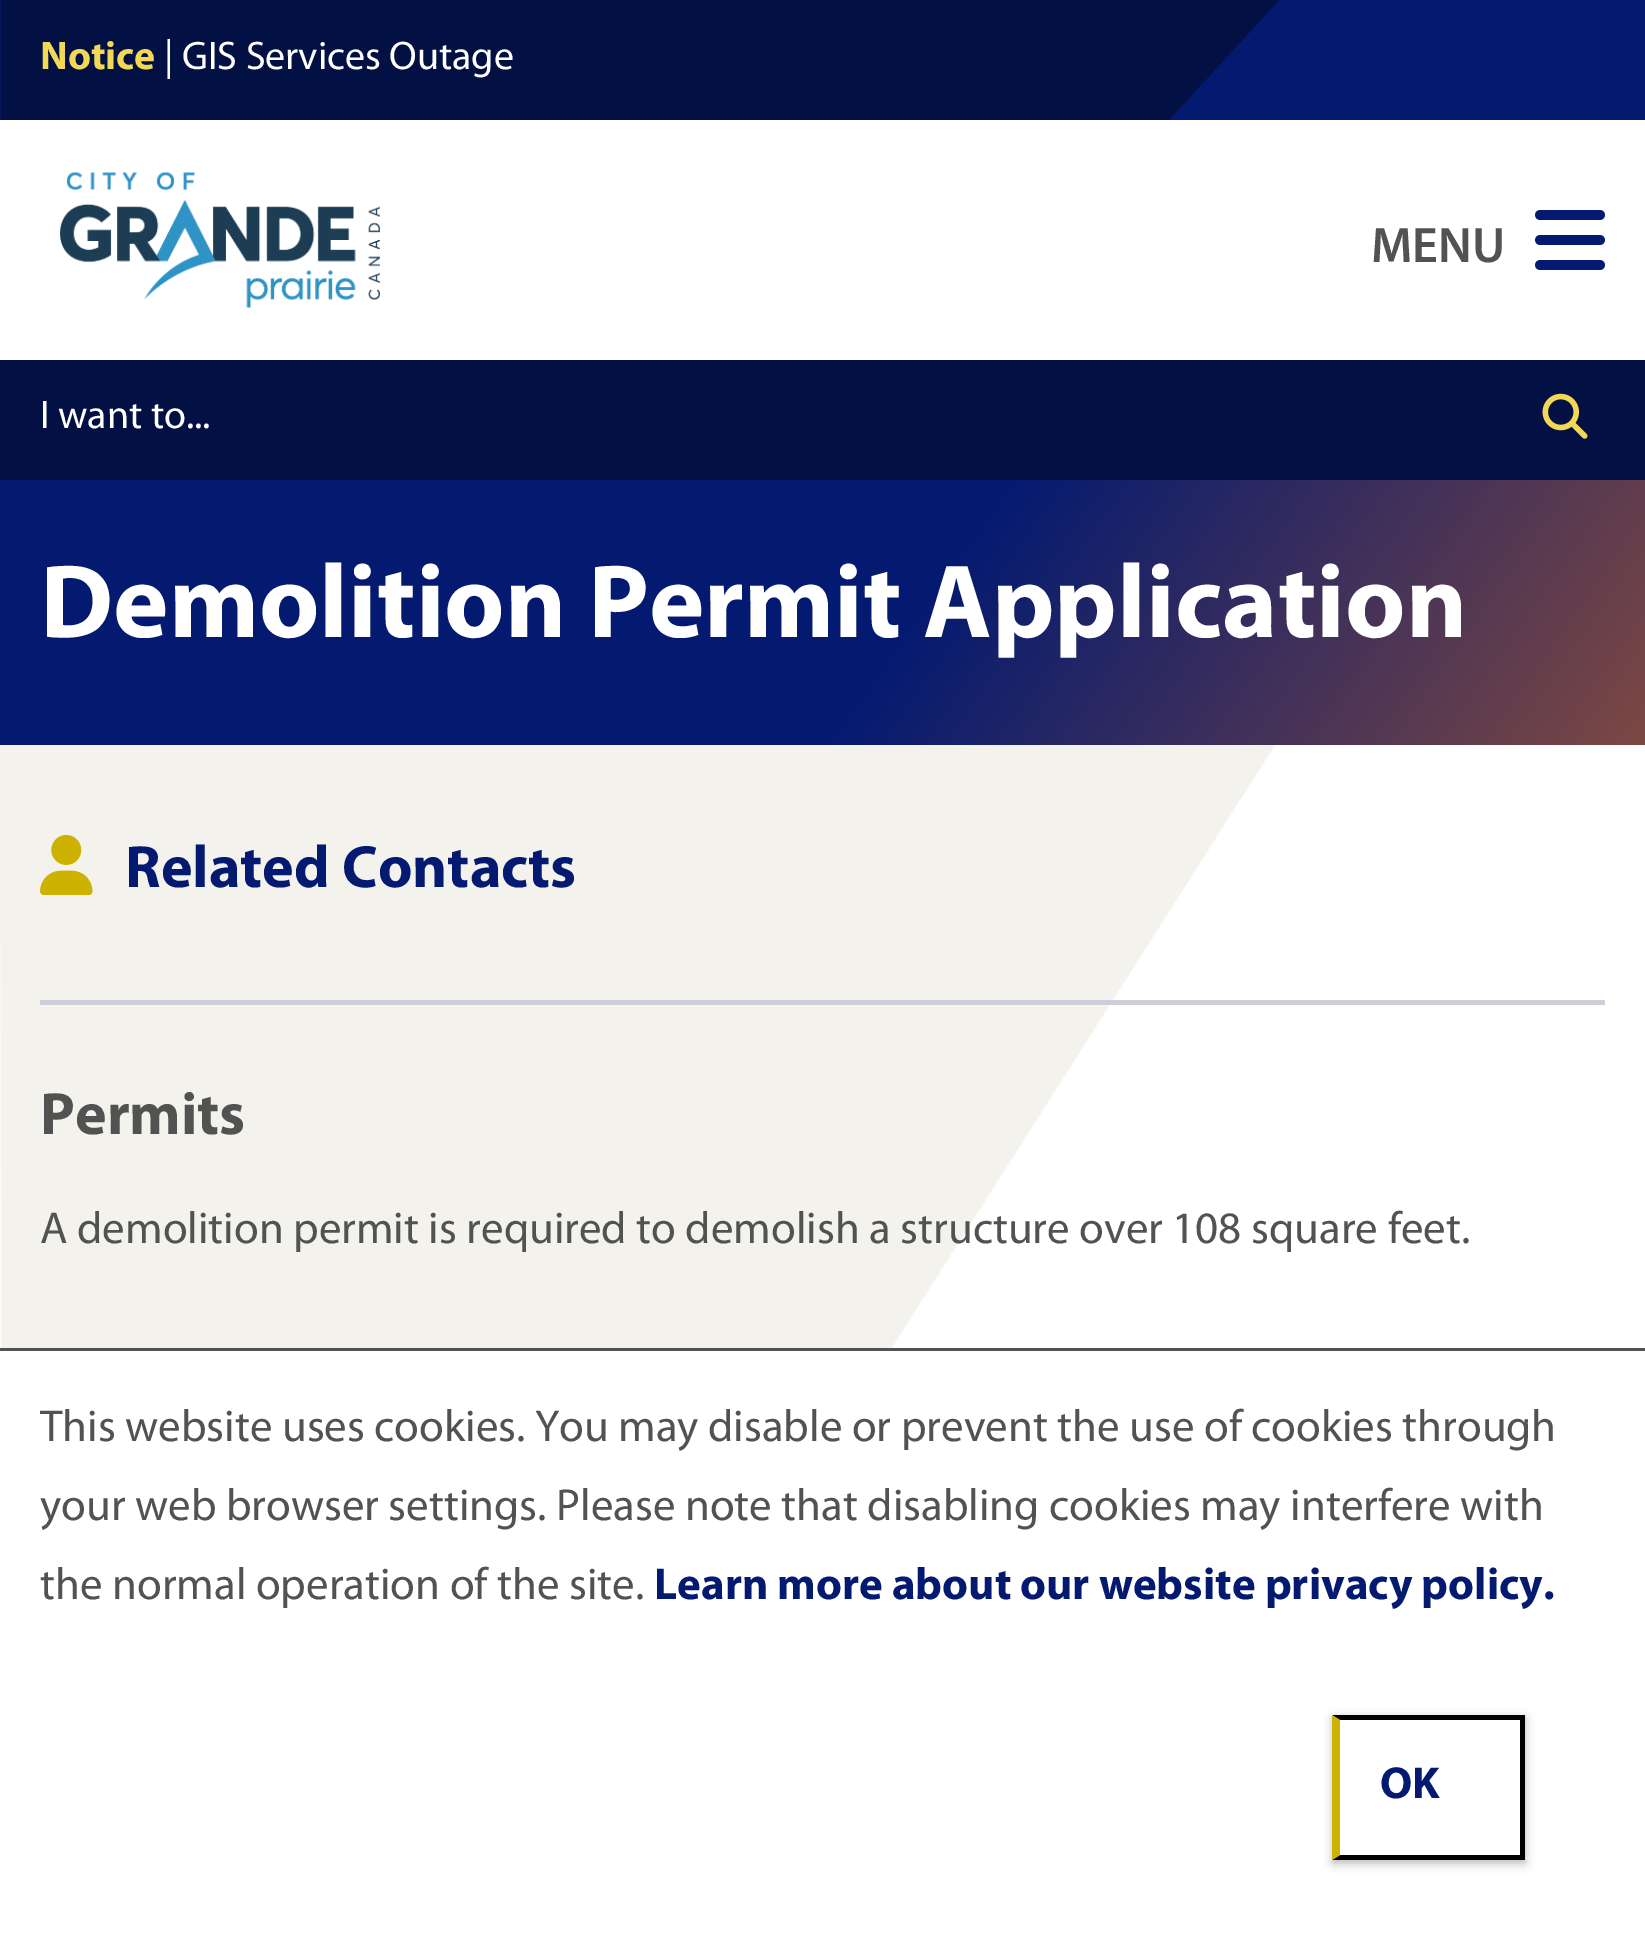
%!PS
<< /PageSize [1645 1943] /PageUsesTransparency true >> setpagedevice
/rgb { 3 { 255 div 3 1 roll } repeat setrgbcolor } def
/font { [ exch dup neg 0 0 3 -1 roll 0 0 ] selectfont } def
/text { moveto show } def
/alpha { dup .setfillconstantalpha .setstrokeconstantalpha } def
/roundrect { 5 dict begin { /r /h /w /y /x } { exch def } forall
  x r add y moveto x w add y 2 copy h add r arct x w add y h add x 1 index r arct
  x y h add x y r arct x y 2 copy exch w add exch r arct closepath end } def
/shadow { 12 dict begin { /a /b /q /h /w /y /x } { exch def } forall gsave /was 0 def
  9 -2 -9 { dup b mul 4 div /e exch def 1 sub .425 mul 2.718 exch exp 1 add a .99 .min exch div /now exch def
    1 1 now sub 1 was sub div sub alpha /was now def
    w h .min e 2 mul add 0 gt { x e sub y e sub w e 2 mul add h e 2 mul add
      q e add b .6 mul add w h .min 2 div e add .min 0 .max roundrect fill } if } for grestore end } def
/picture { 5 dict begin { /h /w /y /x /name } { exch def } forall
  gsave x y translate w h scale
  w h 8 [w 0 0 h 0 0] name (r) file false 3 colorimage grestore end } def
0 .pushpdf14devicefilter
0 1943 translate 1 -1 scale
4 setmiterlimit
255 255 255 rgb
0 0 1645 1943 rectfill
4 26 113 rgb
0 0 1645 120 rectfill
(img_01.rgb) 0 0 1280 120 picture
(img_02.rgb) 60 172 320 136 picture
(img_03.rgb) 1535 210 70 60 picture
2 16 68 rgb
0 360 1645 120 rectfill
(img_04.rgb) 1542 393 46 46 picture
gsave 0 480 moveto 1645 0 rlineto 0 265 rlineto -1645 0 rlineto closepath clip newpath
<< /ShadingType 2 /ColorSpace /DeviceRGB /Coords [208 182 1437 1043] /Extend [true true] /Function << /FunctionType 3 /Domain [0 1] /Functions [<< /FunctionType 2 /Domain [0 1] /C0 [0.016 0.102 0.443] /C1 [0.016 0.102 0.443] /N 1 >> << /FunctionType 2 /Domain [0 1] /C0 [0.016 0.102 0.443] /C1 [0.49 0.282 0.263] /N 1 >>] /Bounds [0.55] /Encode [0 1 0 1] >> >> shfill grestore
(img_05.rgb) 0 745 1275 603 picture
204 207 218 rgb
40 1000 1565 5 rectfill
(img_06.rgb) 40 835 53 60 picture
82 82 82 rgb
0 1348 1645 3 rectfill
gsave
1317 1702 moveto 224 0 rlineto 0 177 rlineto -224 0 rlineto closepath 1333 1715 moveto 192 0 rlineto 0 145 rlineto -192 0 rlineto closepath eoclip newpath
0 0 0 rgb
1333 1718 192 145 0 5 0.3 shadow
grestore
0 0 0 rgb
1332 1715 moveto 193 0 rlineto -5 5 rlineto -180 0 rlineto closepath fill
1520 1715 5 145 rectfill
1525 1860 moveto -193 0 rlineto 8 -5 rlineto 180 0 rlineto closepath fill
205 178 1 rgb
1332 1860 moveto 0 -145 rlineto 8 5 rlineto 0 135 rlineto closepath fill
/Myriad-Bold 40 font
243 215 87 rgb
(Notice) 40 69 text
/Myriad-Regular 40 font
255 255 255 rgb
(| GIS Services Outage) 164 69 text
/Myriad-SemiBold 50 font
82 82 82 rgb
(MENU) 1371 262 text
/Myriad-Regular 40 font
255 255 255 rgb
(I want to...) 40 428 text
/Myriad-Bold 105 font
(Demolition Permit Application) 40 637 text
/Myriad-Bold 60 font
4 26 113 rgb
(Related Contacts) 125 887 text
82 82 82 rgb
(Permits) 40 1134 text
/Myriad-Regular 45 font
(A demolition permit is required to demolish a structure over 108 square feet.) 40 1243 text
(This website uses cookies. You may disable or prevent the use of cookies through) 40 1441 text
(your web browser settings. Please note that disabling cookies may interfere with) 40 1520 text
(the normal operation of the site.) 40 1599 text
/Myriad-Bold 45 font
4 26 113 rgb
(Learn more about our website privacy policy.) 654 1599 text
(OK) 1380 1798 text
.poppdf14devicefilter showpage
